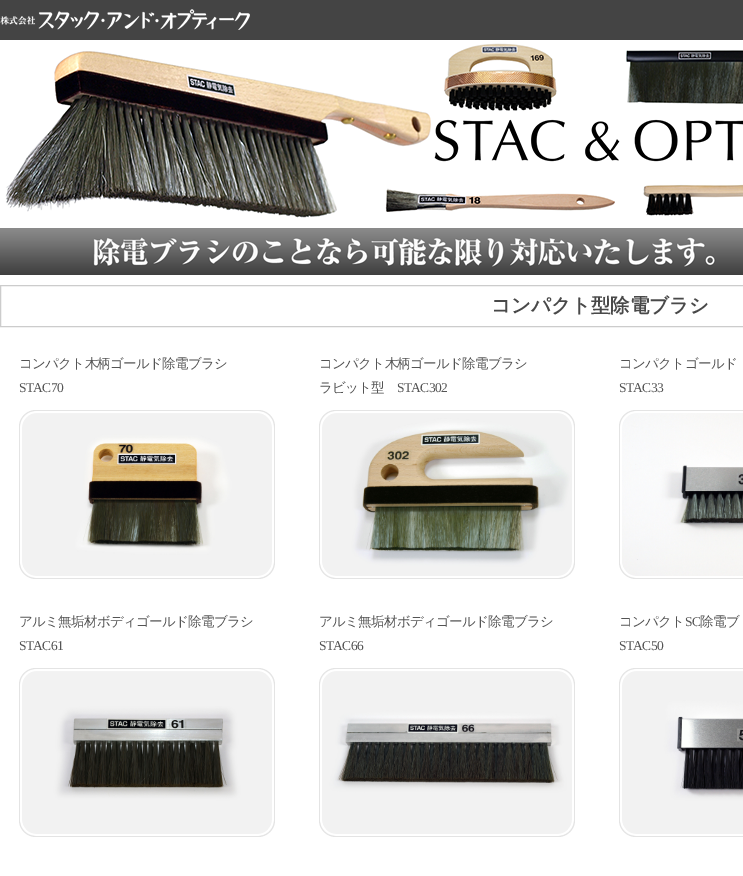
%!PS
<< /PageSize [743 876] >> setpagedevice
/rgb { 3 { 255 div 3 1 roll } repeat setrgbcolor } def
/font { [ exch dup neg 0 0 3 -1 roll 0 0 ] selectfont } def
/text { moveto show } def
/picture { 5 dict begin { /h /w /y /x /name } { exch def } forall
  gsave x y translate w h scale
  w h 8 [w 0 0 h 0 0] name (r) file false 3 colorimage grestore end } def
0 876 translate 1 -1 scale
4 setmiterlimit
255 255 255 rgb
0 0 743 876 rectfill
68 68 68 rgb
0 0 743 40 rectfill
(img_01.rgb) 0 9 250 21 picture
(img_02.rgb) 5 43 738 175 picture
(img_03.rgb) 0 228 743 47 picture
204 204 204 rgb
0.5 285.5 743 41 rectstroke
(img_04.rgb) 19 410 256 169 picture
(img_05.rgb) 22 413 250 163 picture
(img_04.rgb) 319 410 256 169 picture
(img_06.rgb) 322 413 250 163 picture
(img_07.rgb) 619 410 124 169 picture
(img_08.rgb) 622 413 121 163 picture
(img_04.rgb) 19 668 256 169 picture
(img_09.rgb) 22 671 250 163 picture
(img_04.rgb) 319 668 256 169 picture
(img_10.rgb) 322 671 250 163 picture
(img_07.rgb) 619 668 124 169 picture
(img_11.rgb) 622 671 121 163 picture
/WenQuanYiZenHei-Bold 19.5 font
73 73 73 rgb
(コンパクト型除電ブラシ) 491 312 text
/WenQuanYiZenHei-Medium 13.5 font
84 84 84 rgb
19 368 moveto -0.7 0 (コンパクト木柄ゴールド除電ブラシ) ashow
/LiberationSerif-Regular 13.5 font
19 392 moveto -0.7 0 (STAC70) ashow
/WenQuanYiZenHei-Medium 13.5 font
319 368 moveto -0.7 0 (コンパクト木柄ゴールド除電ブラシ) ashow
319 392 moveto -0.7 0 (ラビット型) ashow
/LiberationSerif-Regular 13.5 font
397 392 moveto -0.7 0 (STAC302) ashow
/WenQuanYiZenHei-Medium 13.5 font
619 368 moveto -0.7 0 (コンパクトゴールド) ashow
/LiberationSerif-Regular 13.5 font
619 392 moveto -0.7 0 (STAC33) ashow
/WenQuanYiZenHei-Medium 13.5 font
19 626 moveto -0.7 0 (アルミ無垢材ボディゴールド除電ブラシ) ashow
/LiberationSerif-Regular 13.5 font
19 650 moveto -0.7 0 (STAC61) ashow
/WenQuanYiZenHei-Medium 13.5 font
319 626 moveto -0.7 0 (アルミ無垢材ボディゴールド除電ブラシ) ashow
/LiberationSerif-Regular 13.5 font
319 650 moveto -0.7 0 (STAC66) ashow
/WenQuanYiZenHei-Medium 13.5 font
619 626 moveto -0.7 0 (コンパクト) ashow
/LiberationSerif-Regular 13.5 font
685 626 moveto -0.7 0 (SC) ashow
/WenQuanYiZenHei-Medium 13.5 font
700 626 moveto -0.7 0 (除電ブ) ashow
/LiberationSerif-Regular 13.5 font
619 650 moveto -0.7 0 (STAC50) ashow
showpage
